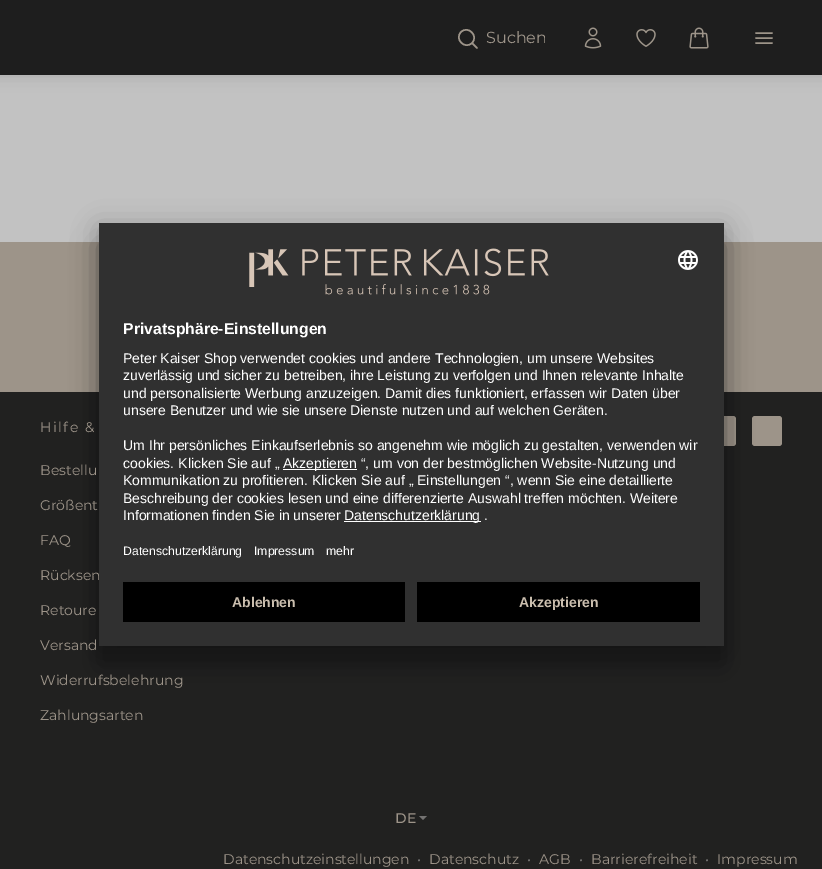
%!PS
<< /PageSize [822 869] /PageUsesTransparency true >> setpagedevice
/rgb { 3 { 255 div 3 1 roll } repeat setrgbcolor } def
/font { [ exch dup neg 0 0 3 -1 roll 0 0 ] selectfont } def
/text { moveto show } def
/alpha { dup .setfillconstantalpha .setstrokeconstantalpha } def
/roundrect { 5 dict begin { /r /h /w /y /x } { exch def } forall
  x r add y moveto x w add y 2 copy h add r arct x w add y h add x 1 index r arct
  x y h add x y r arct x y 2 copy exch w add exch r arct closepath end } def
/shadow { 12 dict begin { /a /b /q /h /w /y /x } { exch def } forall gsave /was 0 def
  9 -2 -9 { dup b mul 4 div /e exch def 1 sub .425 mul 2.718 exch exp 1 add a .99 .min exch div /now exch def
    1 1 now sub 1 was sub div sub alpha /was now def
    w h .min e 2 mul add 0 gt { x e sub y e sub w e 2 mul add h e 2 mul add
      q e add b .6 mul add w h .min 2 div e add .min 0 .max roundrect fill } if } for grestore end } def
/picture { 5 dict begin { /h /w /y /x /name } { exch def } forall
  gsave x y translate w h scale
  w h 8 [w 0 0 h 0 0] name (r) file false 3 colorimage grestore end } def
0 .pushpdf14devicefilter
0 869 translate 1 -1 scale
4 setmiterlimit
194 194 194 rgb
0 0 822 869 rectfill
109 109 109 rgb
-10 -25 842 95 0 10 0.5 shadow
30 30 30 rgb
0 0 822 75 rectfill
157 148 137 rgb
1.5 setlinewidth
1 setlinecap
1 setlinejoin
477 48 moveto -5 -5 rlineto 472 43 moveto 7 -7 -4 -18 -11 -11 rcurveto -7 7 4 18 11 11 rcurveto closepath stroke
(img_01.rgb) 584 27 18 22 picture
(img_02.rgb) 636 29 20 18 picture
(img_03.rgb) 689 27 20 22 picture
756 33 moveto 16 0 rlineto 756 38 moveto 16 0 rlineto 756 43 moveto 16 0 rlineto stroke
33 33 32 rgb
0 392 822 477 rectfill
157 148 137 rgb
0 242 822 150 rectfill
706 416 30 30 3 roundrect fill
752 416 30 30 3 roundrect fill
0 0 0 rgb
99 243 625 423 0 14 0.3 shadow
99 228 625 423 0 13 0.22 shadow
116 115 114 rgb
419 816 moveto 8 0 rlineto -4 4 rlineto closepath fill
gsave
486 28 59 19 rectclip
/Montserrat-Regular 16 font
157 148 137 rgb
(Suchen) 486 43 text
grestore
/Montserrat-Regular 14 font
157 148 137 rgb
40 432 moveto 1.5 0 (Hilfe &) ashow
(Bestellu) 40 475 text
(Größent) 40 510 text
(FAQ) 40 545 text
(Rücksen) 40 580 text
48 48 48 rgb
99 223 625 423 rectfill
(img_05.rgb) 678 250 20 20 picture
/LiberationSans-Regular 12.25 font
255 255 255 rgb
(Impressum) 254 555 text
(Datenschutzerklärung) 123 555 text
(img_04.rgb) 249 248 300 47 picture
344 521 137 1 rectfill
/LiberationSans-Regular 14 font
(Datenschutzerklärung .) 344 520 text
(Informationen finden Sie in unserer) 123 520 text
(Beschreibung der cookies lesen und eine differenzierte Auswahl treffen möchten. Weitere) 123 503 text
(Kommunikation zu profitieren. Klicken Sie auf „ Einstellungen “, wenn Sie eine detaillierte) 123 485 text
283 469 74 1 rectfill
(Akzeptieren “, um von der bestmöglichen Website-Nutzung und) 283 468 text
(cookies. Klicken Sie auf „) 123 468 text
(Um Ihr persönliches Einkaufserlebnis so angenehm wie möglich zu gestalten, verwenden wir) 123 450 text
(unsere Benutzer und wie sie unsere Dienste nutzen und auf welchen Geräten.) 123 415 text
(und personalisierte Werbung anzuzeigen. Damit dies funktioniert, erfassen wir Daten über) 123 398 text
(zuverlässig und sicher zu betreiben, ihre Leistung zu verfolgen und Ihnen relevante Inhalte) 123 380 text
(Peter Kaiser Shop verwendet cookies und andere Technologien, um unsere Websites) 123 363 text
/LiberationSans-Regular 12.25 font
(mehr) 326 555 text
/LiberationSans-Bold 15.75 font
(Privatsphäre-Einstellungen) 123 334 text
0 0 0 rgb
417 582 283 40 rectfill
/LiberationSans-Bold 14 font
202 190 174 rgb
(Akzeptieren) 519 607 text
0 0 0 rgb
123 582 282 40 rectfill
202 190 174 rgb
(Ablehnen) 232 607 text
/Montserrat-Regular 14 font
157 148 137 rgb
(Retoure) 40 615 text
(Versand) 40 650 text
(Widerrufsbelehrung) 40 685 text
(Zahlungsarten) 40 720 text
/Montserrat-Medium 14 font
(DE) 395 823 text
/Montserrat-Regular 14 font
(Datenschutzeinstellungen) 223 864 text
116 115 114 rgb
(•) 417 864 text
157 148 137 rgb
(Datenschutz) 429 864 text
116 115 114 rgb
(•) 527 864 text
157 148 137 rgb
(AGB) 539 864 text
116 115 114 rgb
(•) 579 864 text
157 148 137 rgb
(Barrierefreiheit) 591 864 text
116 115 114 rgb
(•) 705 864 text
157 148 137 rgb
(Impressum) 717 864 text
.poppdf14devicefilter showpage
